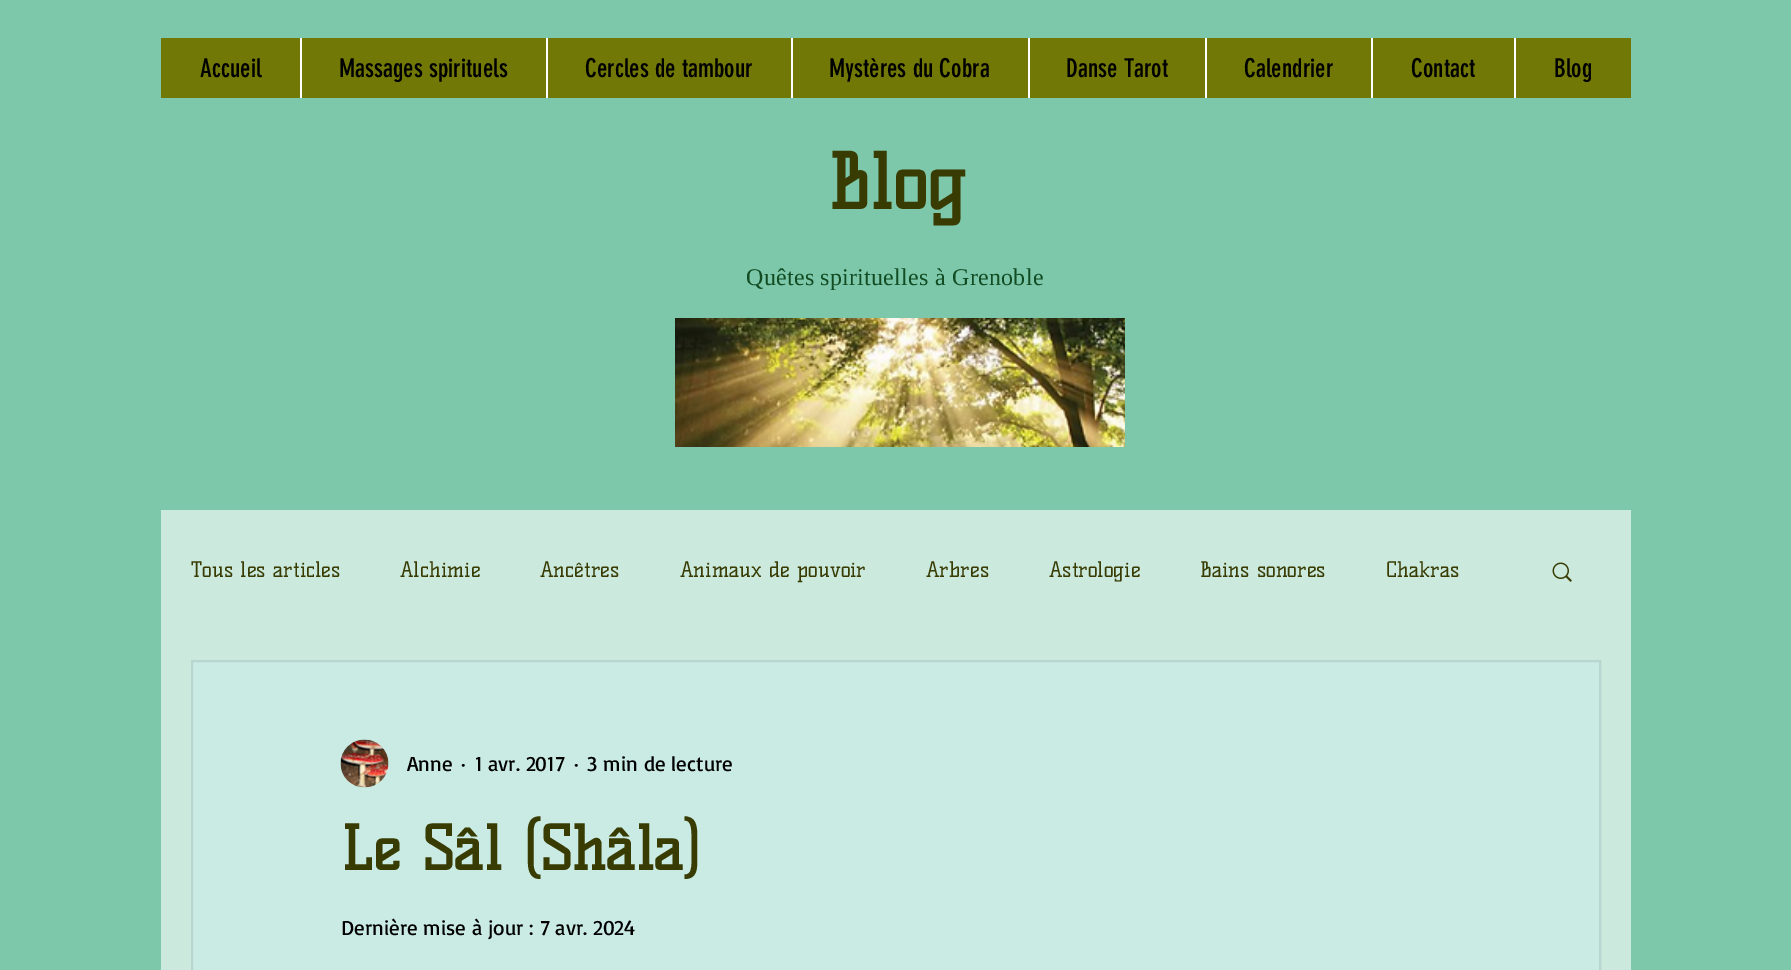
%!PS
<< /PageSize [1791 970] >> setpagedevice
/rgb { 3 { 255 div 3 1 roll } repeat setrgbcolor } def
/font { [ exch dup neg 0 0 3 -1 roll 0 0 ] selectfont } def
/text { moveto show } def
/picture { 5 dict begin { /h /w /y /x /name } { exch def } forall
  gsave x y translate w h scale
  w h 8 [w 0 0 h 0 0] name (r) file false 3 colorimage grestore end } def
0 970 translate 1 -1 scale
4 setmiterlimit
125 200 171 rgb
0 0 1791 970 rectfill
113 120 6 rgb
161 38 1470 60 rectfill
255 255 255 rgb
300 38 2 60 rectfill
546 38 2 60 rectfill
791 38 2 60 rectfill
1028 38 2 60 rectfill
1205 38 2 60 rectfill
1371 38 2 60 rectfill
1514 38 2 60 rectfill
(img_01.rgb) 675 318 450 129 picture
203 233 221 rgb
161 510 1470 460 rectfill
(img_02.rgb) 1552 562 20 20 picture
202 235 227 rgb
192 661 moveto 1408 0 rlineto 0 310 rlineto -1408 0 rlineto closepath gsave fill grestore
184 214 207 rgb
2 setlinewidth
stroke
(img_03.rgb) 340 739 49 49 picture
/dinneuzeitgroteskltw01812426-Regular 25.5 font
0 0 0 rgb
(Accueil) 200 77 text
(Massages spirituels) 339 77 text
(Cercles de tambour) 585 77 text
(Mystères du Cobra) 829 77 text
(Danse Tarot) 1066 77 text
(Calendrier) 1244 77 text
(Contact) 1411 77 text
(Blog) 1554 77 text
/LiberationSerif-Regular 24 font
17 76 34 rgb
746 285 moveto 0.25 0 (Quêtes spirituelles à Grenoble) ashow
/KellySlab-Bold 75 font
56 60 3 rgb
(Blog) 828 209 text
/KellySlab-Regular 21 font
(Tous les articles) 191 577 text
(Alchimie) 400 577 text
(Ancêtres) 540 577 text
(Animaux de pouvoir) 680 577 text
(Arbres) 926 577 text
(Astrologie) 1049 577 text
(Bains sonores) 1200 577 text
(Chakras) 1386 577 text
/Basic-Regular 21 font
0 0 0 rgb
(Anne) 407 771 text
(·) 461 771 text
(1 avr. 2017) 475 771 text
(·) 574 771 text
(3 min de lecture) 587 771 text
/KellySlab-Bold 60 font
56 60 3 rgb
(Le Sâl \(Shâla\)) 341 870 text
/Basic-Regular 21 font
0 0 0 rgb
(Dernière mise à jour : 7 avr. 2024) 341 935 text
showpage
